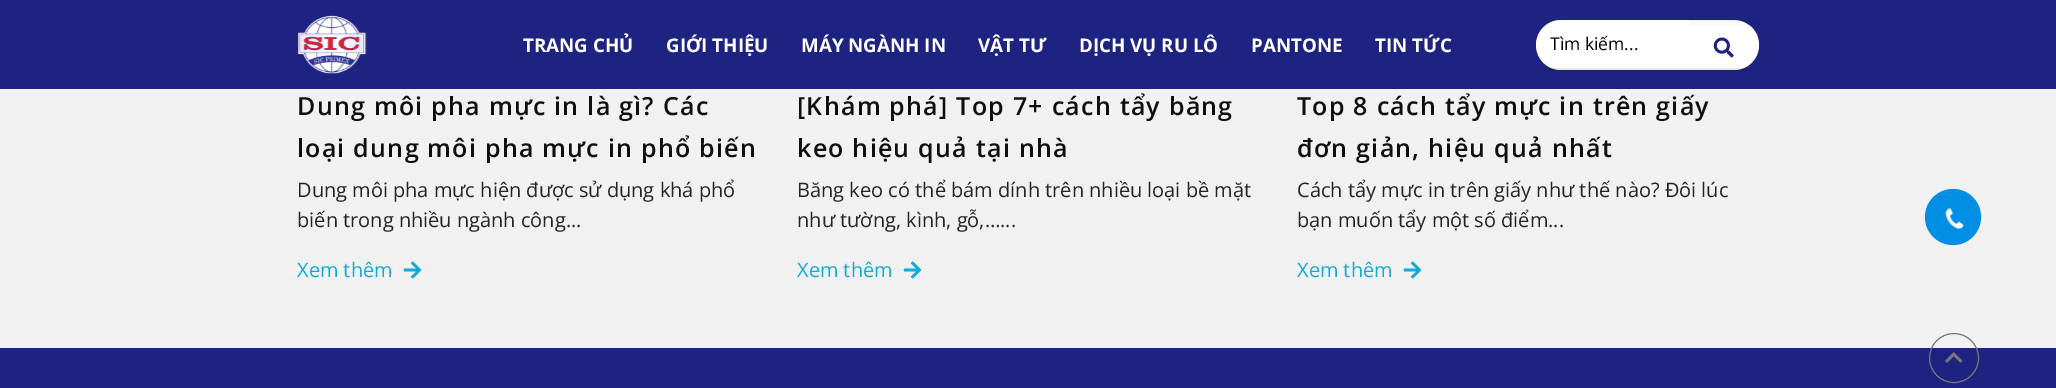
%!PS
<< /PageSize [2056 388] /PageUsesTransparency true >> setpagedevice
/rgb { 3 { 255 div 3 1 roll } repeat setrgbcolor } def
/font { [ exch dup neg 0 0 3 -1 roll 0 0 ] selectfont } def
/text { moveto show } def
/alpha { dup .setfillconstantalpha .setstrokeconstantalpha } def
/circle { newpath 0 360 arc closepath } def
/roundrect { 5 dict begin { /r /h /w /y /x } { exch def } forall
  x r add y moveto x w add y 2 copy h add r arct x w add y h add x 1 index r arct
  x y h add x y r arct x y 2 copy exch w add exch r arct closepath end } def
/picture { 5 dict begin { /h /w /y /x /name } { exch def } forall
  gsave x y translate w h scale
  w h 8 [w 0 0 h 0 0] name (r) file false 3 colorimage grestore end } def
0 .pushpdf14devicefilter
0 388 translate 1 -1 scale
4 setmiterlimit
241 241 241 rgb
0 0 2056 388 rectfill
30 34 128 rgb
0 0 2056 89 rectfill
(img_01.rgb) 297 15 70 59 picture
255 255 255 rgb
1536 20 223 50 25 roundrect fill
0.09 alpha
0 0 0 rgb
1549 68 197 3 rectfill
1 alpha
(img_02.rgb) 1689 19 70 6 picture
(img_03.rgb) 1713 37 21 21 picture
(img_04.rgb) 403 261 19 18 picture
(img_04.rgb) 903 261 19 18 picture
(img_04.rgb) 1403 261 19 18 picture
30 34 128 rgb
0 348 2056 40 rectfill
0 143 229 rgb
1953 217 28 circle fill
(img_05.rgb) 1945 208 19 22 picture
119 119 119 rgb
1954 358 24.5 circle stroke
(img_06.rgb) 1945 352 18 11 picture
/OpenSans-Bold 18.75 font
255 255 255 rgb
(TRANG CHỦ) 523 52 text
(GIỚI THIỆU) 666 52 text
(MÁY NGÀNH IN) 801 52 text
(VẬT TƯ) 978 52 text
(DỊCH VỤ RU LÔ) 1079 52 text
(PANTONE) 1251 52 text
(TIN TỨC) 1375 52 text
/OpenSans-Regular 17.5 font
0 0 0 rgb
(Tìm kiếm...) 1550 50 text
/OpenSans-SemiBold 25 font
15 15 15 rgb
297 115 moveto 1.25 0 (Dung môi pha mực in là gì? Các) ashow
297 157 moveto 1.25 0 (loại dung môi pha mực in phổ biến) ashow
/OpenSans-Regular 20 font
33 37 41 rgb
(Dung môi pha mực hiện được sử dụng khá phổ) 297 197 text
(biến trong nhiều ngành công...) 297 227 text
19 170 216 rgb
(Xem thêm) 297 277 text
/OpenSans-SemiBold 25 font
15 15 15 rgb
797 115 moveto 1.25 0 ([Khám phá] Top 7+ cách tẩy băng) ashow
797 157 moveto 1.25 0 (keo hiệu quả tại nhà) ashow
/OpenSans-Regular 20 font
33 37 41 rgb
(Băng keo có thể bám dính trên nhiều loại bề mặt) 797 197 text
(như tường, kình, gỗ,…...) 797 227 text
19 170 216 rgb
(Xem thêm) 797 277 text
/OpenSans-SemiBold 25 font
15 15 15 rgb
1297 115 moveto 1.25 0 (Top 8 cách tẩy mực in trên giấy) ashow
1297 157 moveto 1.25 0 (đơn giản, hiệu quả nhất) ashow
/OpenSans-Regular 20 font
33 37 41 rgb
(Cách tẩy mực in trên giấy như thế nào? Đôi lúc) 1297 197 text
(bạn muốn tẩy một số điểm...) 1297 227 text
19 170 216 rgb
(Xem thêm) 1297 277 text
.poppdf14devicefilter showpage
